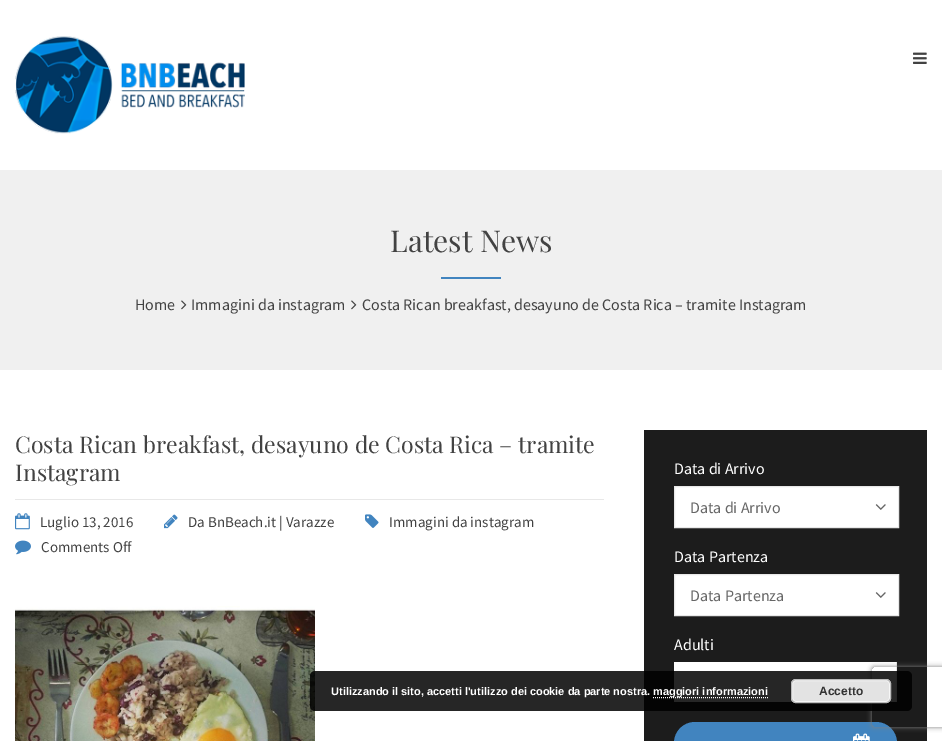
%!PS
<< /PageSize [942 741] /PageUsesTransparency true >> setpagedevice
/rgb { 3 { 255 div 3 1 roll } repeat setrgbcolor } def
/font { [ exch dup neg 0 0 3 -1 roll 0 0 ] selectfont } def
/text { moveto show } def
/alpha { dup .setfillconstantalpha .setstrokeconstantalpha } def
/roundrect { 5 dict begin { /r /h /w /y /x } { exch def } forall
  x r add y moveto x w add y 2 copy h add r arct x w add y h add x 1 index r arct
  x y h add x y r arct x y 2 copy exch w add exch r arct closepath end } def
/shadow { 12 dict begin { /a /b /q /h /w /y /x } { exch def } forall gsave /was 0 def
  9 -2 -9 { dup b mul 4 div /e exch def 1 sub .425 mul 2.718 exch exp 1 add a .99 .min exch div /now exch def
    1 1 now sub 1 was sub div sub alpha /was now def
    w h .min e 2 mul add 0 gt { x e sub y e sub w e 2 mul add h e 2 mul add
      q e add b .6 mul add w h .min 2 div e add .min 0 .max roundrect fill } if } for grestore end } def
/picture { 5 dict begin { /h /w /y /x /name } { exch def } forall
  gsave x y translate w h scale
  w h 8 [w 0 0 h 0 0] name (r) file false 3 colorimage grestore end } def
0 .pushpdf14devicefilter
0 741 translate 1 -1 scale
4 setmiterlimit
255 255 255 rgb
0 0 942 741 rectfill
(img_01.rgb) 15 36 230 98 picture
(img_02.rgb) 913 52 14 12 picture
240 240 240 rgb
0 170 942 200 rectfill
65 132 191 rgb
441 277 60 2 rectfill
(img_03.rgb) 181 300 6 10 picture
(img_03.rgb) 351 300 6 10 picture
232 232 232 rgb
15 499 589 1 rectfill
(img_04.rgb) 15 513 15 17 picture
(img_05.rgb) 164 514 14 15 picture
(img_06.rgb) 365 514 14 14 picture
(img_07.rgb) 15 540 16 15 picture
(img_08.rgb) 15 606 300 135 picture
28 28 28 rgb
644 430 283 311 rectfill
255 255 255 rgb
674.5 486.5 moveto 224 0 rlineto 0 41 rlineto -224 0 rlineto closepath gsave fill grestore
232 232 232 rgb
stroke
(img_09.rgb) 875 504 11 6 picture
255 255 255 rgb
674.5 574.5 moveto 224 0 rlineto 0 41 rlineto -224 0 rlineto closepath gsave fill grestore
232 232 232 rgb
stroke
(img_09.rgb) 875 592 11 6 picture
896 662 1 40 rectfill
255 255 255 rgb
674 662 222 40 rectfill
65 132 191 rgb
674 722 223 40 21 roundrect fill
(img_10.rgb) 853 733 17 8 picture
gsave
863 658 moveto 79 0 rlineto 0 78 rlineto -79 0 rlineto closepath 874 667 moveto 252 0 rlineto 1 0 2 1 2 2 rcurveto 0 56 rlineto 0 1 -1 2 -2 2 rcurveto -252 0 rlineto -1 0 -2 -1 -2 -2 rcurveto 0 -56 rlineto 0 -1 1 -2 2 -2 rcurveto closepath eoclip newpath
128 128 128 rgb
872 667 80 60 2 2.5 1 shadow
grestore
0.85 alpha
0 0 0 rgb
310 671 602 40 5 roundrect fill
1 alpha
255 255 255 rgb
[1 1] 0 setdash
653 697.5 moveto 115 0 rlineto stroke
227 227 227 rgb
791 679 100 24 5 roundrect fill
246 246 246 rgb
[] 0 setdash
792.5 680.5 97 21 3.5 roundrect stroke
187 187 187 rgb
791.5 679.5 99 23 4.5 roundrect stroke
/PlayfairDisplay-Regular 30 font
66 66 66 rgb
(Latest News) 390 252 text
/SourceSansPro-Regular 16 font
(Home) 135 310 text
(Immagini da instagram) 191 310 text
(Costa Rican breakfast, desayuno de Costa Rica – tramite Instagram) 362 310 text
/PlayfairDisplay-Regular 23 font
(Costa Rican breakfast, desayuno de Costa Rica – tramite) 15 453 text
(Instagram) 15 481 text
/SourceSansPro-Regular 15 font
(Luglio 13, 2016) 40 527 text
(Da BnBeach.it | Varazze) 188 527 text
(Immagini da instagram) 389 527 text
(Comments Off) 41 552 text
/SourceSansPro-Regular 16 font
255 255 255 rgb
(Data di Arrivo) 674 474 text
102 102 102 rgb
(Data di Arrivo) 690 513 text
255 255 255 rgb
(Data Partenza) 674 562 text
102 102 102 rgb
(Data Partenza) 690 601 text
255 255 255 rgb
(Adulti) 674 650 text
/LiberationSans-Bold 11 font
(Utilizzando il sito, accetti l'utilizzo dei cookie da parte nostra.) 331 695 text
(maggiori informazioni) 653 695 text
/LiberationSans-Bold 12 font
51 51 51 rgb
(Accetto) 819 695 text
.poppdf14devicefilter showpage
